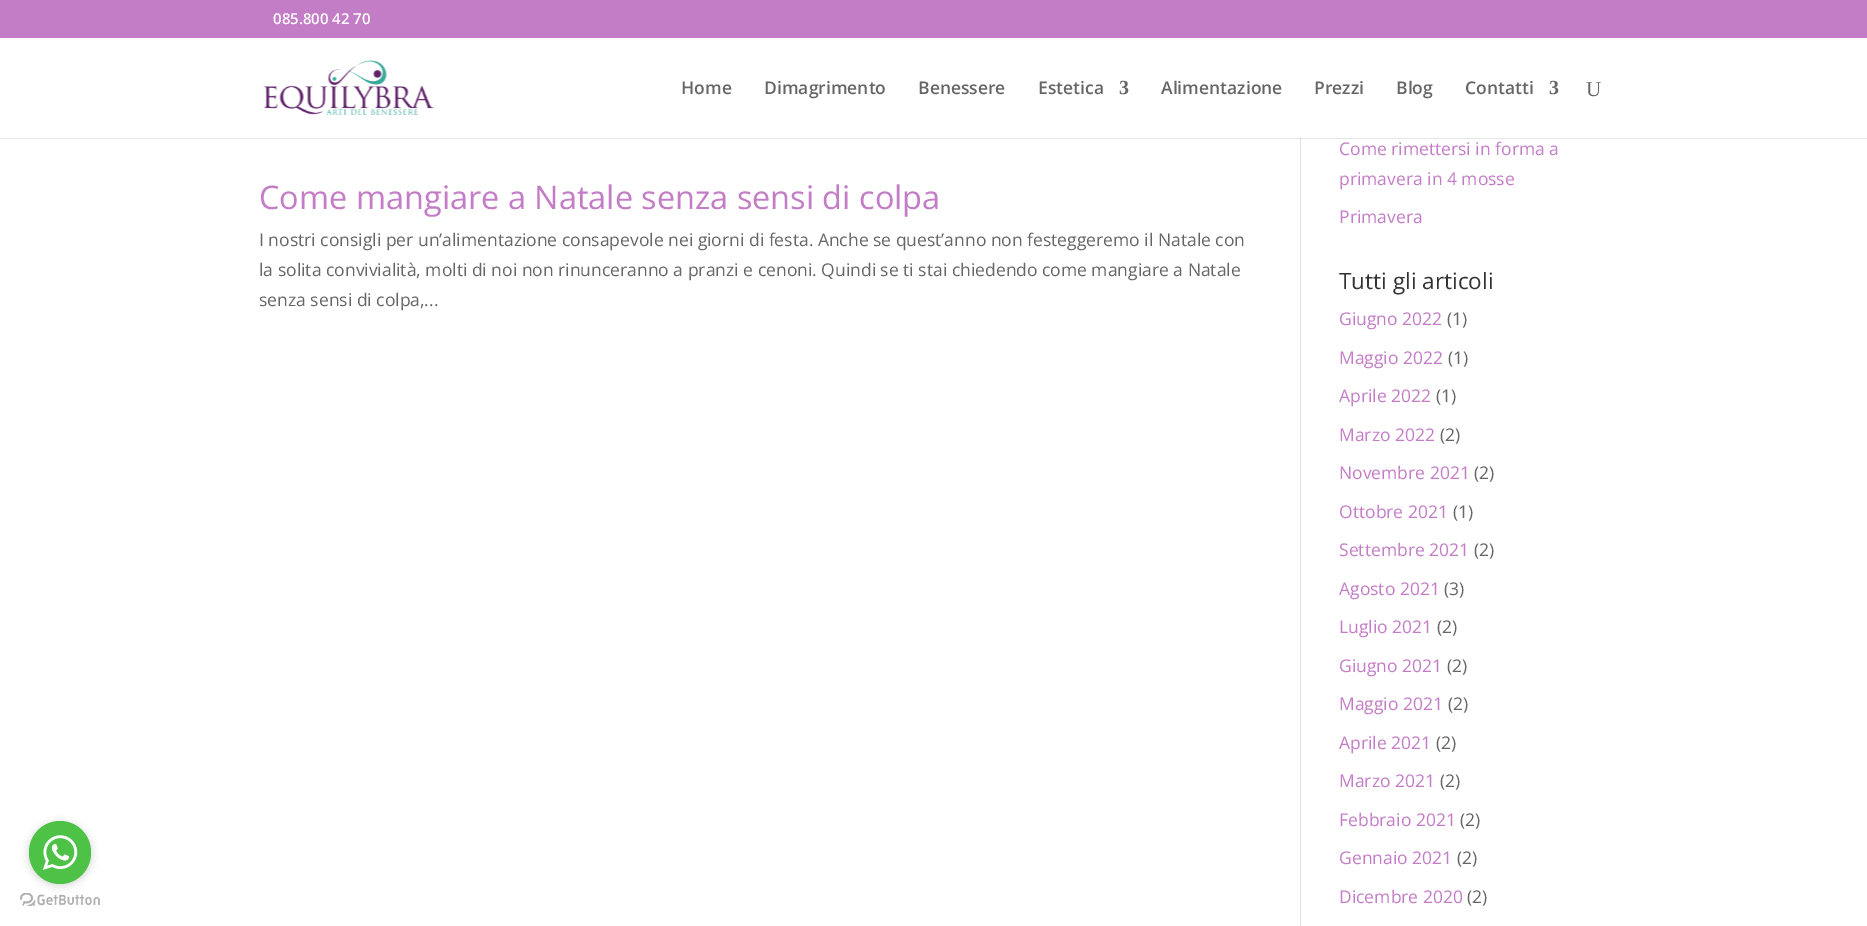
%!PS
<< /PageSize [1867 926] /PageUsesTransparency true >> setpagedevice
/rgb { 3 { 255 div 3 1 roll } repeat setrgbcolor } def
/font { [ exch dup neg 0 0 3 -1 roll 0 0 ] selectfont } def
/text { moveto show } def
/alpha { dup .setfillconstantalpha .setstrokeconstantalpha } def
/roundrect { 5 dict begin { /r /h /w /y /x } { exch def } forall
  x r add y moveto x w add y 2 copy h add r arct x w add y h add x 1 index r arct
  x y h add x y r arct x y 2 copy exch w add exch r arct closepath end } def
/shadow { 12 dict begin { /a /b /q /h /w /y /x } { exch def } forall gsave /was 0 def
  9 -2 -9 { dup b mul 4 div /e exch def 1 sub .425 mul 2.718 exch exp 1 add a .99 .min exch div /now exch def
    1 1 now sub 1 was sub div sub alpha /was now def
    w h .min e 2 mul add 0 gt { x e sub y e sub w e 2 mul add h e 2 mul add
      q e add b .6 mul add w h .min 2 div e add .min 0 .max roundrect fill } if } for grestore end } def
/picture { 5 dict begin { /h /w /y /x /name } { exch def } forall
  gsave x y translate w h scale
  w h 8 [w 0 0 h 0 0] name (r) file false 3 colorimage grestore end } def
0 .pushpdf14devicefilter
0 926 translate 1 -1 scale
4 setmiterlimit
255 255 255 rgb
0 0 1867 926 rectfill
(img_02.rgb) 20 893 80 13 picture
136 136 136 rgb
29 823 62 62 31 4.5 0.4 shadow
77 194 71 rgb
29 821 62 63 31 roundrect fill
(img_01.rgb) 42 835 36 35 picture
195 124 198 rgb
0 0 1867 38 rectfill
226 226 226 rgb
1300 138 1 788 rectfill
0.1 alpha
0 0 0 rgb
0 138 moveto 0 1 rlineto 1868 0 rlineto 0 -100 rlineto 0 99 rlineto closepath fill
1 alpha
(img_03.rgb) 263 60 172 55 picture
/OpenSans-SemiBold 15 font
255 255 255 rgb
(085.800 42 70) 273 24 text
/OpenSans-SemiBold 17.5 font
102 102 102 rgb
(Home) 681 94 text
(Dimagrimento) 764 94 text
(Benessere) 918 94 text
(Estetica) 1038 94 text
/LiberationSerif-Bold 20 font
(3) 1119 94 text
/OpenSans-SemiBold 17.5 font
(Alimentazione) 1161 94 text
(Prezzi) 1314 94 text
(Blog) 1396 94 text
(Contatti) 1465 94 text
/LiberationSerif-Bold 20 font
(3) 1549 94 text
/LiberationSerif-Regular 21 font
(U) 1586 96 text
/OpenSans-Regular 32.5 font
195 124 198 rgb
(Come mangiare a Natale senza sensi di colpa) 259 209 text
/OpenSans-Regular 17.5 font
102 102 102 rgb
(I nostri consigli per un’alimentazione consapevole nei giorni di festa. Anche se quest’anno non festeggeremo il Natale con) 259 246 text
(la solita convivialità, molti di noi non rinunceranno a pranzi e cenoni. Quindi se ti stai chiedendo come mangiare a Natale) 259 276 text
(senza sensi di colpa,...) 259 306 text
195 124 198 rgb
(Come rimettersi in forma a) 1339 155 text
(primavera in 4 mosse) 1339 185 text
(Primavera) 1339 223 text
/OpenSans-Regular 22.5 font
51 51 51 rgb
(Tutti gli articoli) 1339 289 text
/OpenSans-Regular 17.5 font
195 124 198 rgb
(Giugno 2022) 1339 325 text
102 102 102 rgb
(\(1\)) 1447 325 text
195 124 198 rgb
(Maggio 2022) 1339 364 text
102 102 102 rgb
(\(1\)) 1448 364 text
195 124 198 rgb
(Aprile 2022) 1339 402 text
102 102 102 rgb
(\(1\)) 1436 402 text
195 124 198 rgb
(Marzo 2022) 1339 441 text
102 102 102 rgb
(\(2\)) 1440 441 text
195 124 198 rgb
(Novembre 2021) 1339 479 text
102 102 102 rgb
(\(2\)) 1474 479 text
195 124 198 rgb
(Ottobre 2021) 1339 518 text
102 102 102 rgb
(\(1\)) 1453 518 text
195 124 198 rgb
(Settembre 2021) 1339 556 text
102 102 102 rgb
(\(2\)) 1474 556 text
195 124 198 rgb
(Agosto 2021) 1339 595 text
102 102 102 rgb
(\(3\)) 1444 595 text
195 124 198 rgb
(Luglio 2021) 1339 633 text
102 102 102 rgb
(\(2\)) 1437 633 text
195 124 198 rgb
(Giugno 2021) 1339 672 text
102 102 102 rgb
(\(2\)) 1447 672 text
195 124 198 rgb
(Maggio 2021) 1339 710 text
102 102 102 rgb
(\(2\)) 1448 710 text
195 124 198 rgb
(Aprile 2021) 1339 749 text
102 102 102 rgb
(\(2\)) 1436 749 text
195 124 198 rgb
(Marzo 2021) 1339 787 text
102 102 102 rgb
(\(2\)) 1440 787 text
195 124 198 rgb
(Febbraio 2021) 1339 826 text
102 102 102 rgb
(\(2\)) 1460 826 text
195 124 198 rgb
(Gennaio 2021) 1339 864 text
102 102 102 rgb
(\(2\)) 1457 864 text
195 124 198 rgb
(Dicembre 2020) 1339 903 text
102 102 102 rgb
(\(2\)) 1467 903 text
.poppdf14devicefilter showpage
